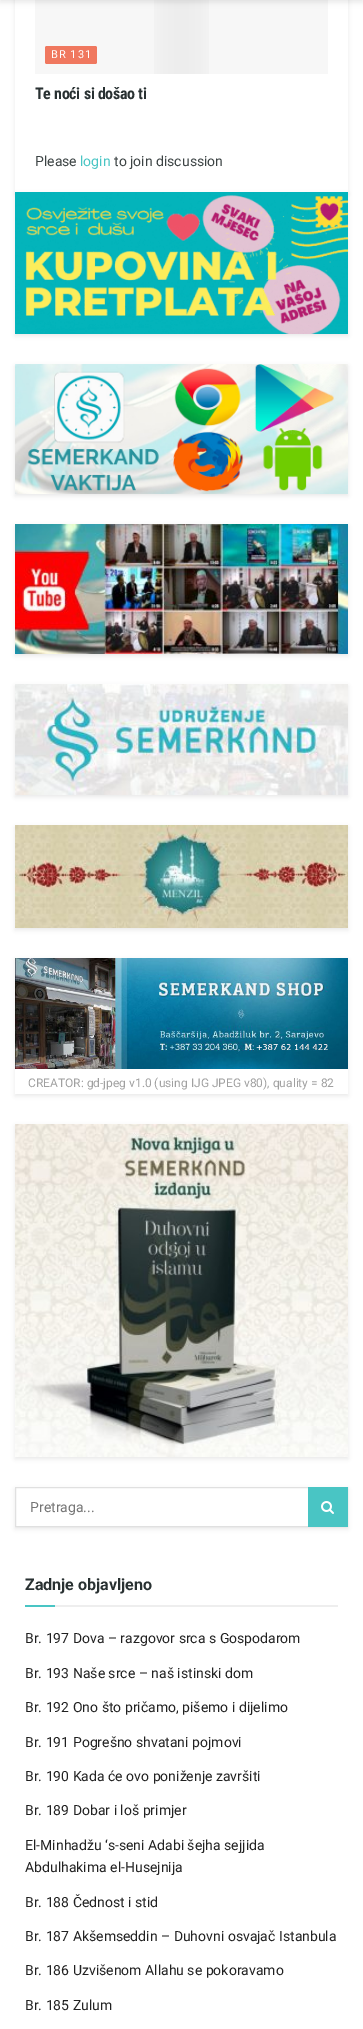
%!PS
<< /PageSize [363 2029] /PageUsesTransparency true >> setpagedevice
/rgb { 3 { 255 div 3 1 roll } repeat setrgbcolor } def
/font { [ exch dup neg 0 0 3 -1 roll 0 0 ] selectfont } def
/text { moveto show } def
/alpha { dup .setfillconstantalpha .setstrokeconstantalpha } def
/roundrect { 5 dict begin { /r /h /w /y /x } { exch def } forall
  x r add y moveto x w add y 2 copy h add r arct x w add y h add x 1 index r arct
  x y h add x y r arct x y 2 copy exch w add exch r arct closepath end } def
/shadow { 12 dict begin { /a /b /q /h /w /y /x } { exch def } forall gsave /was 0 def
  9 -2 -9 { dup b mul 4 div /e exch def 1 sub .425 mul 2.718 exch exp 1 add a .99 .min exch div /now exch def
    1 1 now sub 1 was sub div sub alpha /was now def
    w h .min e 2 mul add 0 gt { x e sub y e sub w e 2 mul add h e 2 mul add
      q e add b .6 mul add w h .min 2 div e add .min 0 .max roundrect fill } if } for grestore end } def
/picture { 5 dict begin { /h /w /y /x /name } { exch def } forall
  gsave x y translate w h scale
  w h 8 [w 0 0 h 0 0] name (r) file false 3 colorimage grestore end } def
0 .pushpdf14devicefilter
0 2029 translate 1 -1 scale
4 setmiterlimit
255 255 255 rgb
0 0 363 2029 rectfill
gsave
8 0 moveto 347 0 rlineto 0 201 rlineto -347 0 rlineto closepath 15 -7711 moveto 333 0 rlineto 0 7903 rlineto -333 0 rlineto closepath eoclip newpath
0 0 0 rgb
15 -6 333 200 0 2 0.08 shadow
grestore
247 247 247 rgb
35 0 293 74 rectfill
(img_01.rgb) 154 0 55 74 picture
0 0 0 rgb
0 -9 363 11 0 3 0.1 shadow
240 120 95 rgb
45 46 52 18 2 roundrect fill
0 0 0 rgb
15 194 333 142 0 2 0.08 shadow
(img_02.rgb) 15 192 333 142 picture
15 366 333 130 0 2 0.08 shadow
(img_03.rgb) 15 364 333 130 picture
15 526 333 130 0 2 0.08 shadow
(img_04.rgb) 15 524 333 130 picture
15 686 333 111 0 2 0.08 shadow
(img_05.rgb) 15 684 333 111 picture
15 827 333 103 0 2 0.08 shadow
(img_06.rgb) 15 825 333 103 picture
gsave
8 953 moveto 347 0 rlineto 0 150 rlineto -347 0 rlineto closepath 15 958 moveto 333 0 rlineto 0 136 rlineto -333 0 rlineto closepath eoclip newpath
15 960 333 136 0 2 0.08 shadow
grestore
(img_07.rgb) 15 958 333 111 picture
15 1126 333 333 0 2 0.08 shadow
(img_08.rgb) 15 1124 333 333 picture
gsave
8 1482 moveto 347 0 rlineto 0 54 rlineto -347 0 rlineto closepath 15 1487 moveto 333 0 rlineto 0 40 rlineto -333 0 rlineto closepath eoclip newpath
15 1489 333 40 0 2 0.08 shadow
grestore
224 224 224 rgb
15.5 1487.5 332 39 rectstroke
73 197 196 rgb
308 1487 40 40 rectfill
(img_09.rgb) 321 1501 13 13 picture
238 238 238 rgb
55 1605 283 2 rectfill
73 197 196 rgb
25 1605 30 2 rectfill
/Roboto-Regular 11 font
255 255 255 rgb
51 58 moveto 1 0 (BR 131) ashow
/RobotoCondensed-Bold 16 font
41 49 50 rgb
35 99 moveto -0.3 0 (Te noći si došao ti) ashow
/Roboto-Regular 14 font
60 67 68 rgb
(Please) 35 166 text
73 197 196 rgb
(login) 80 166 text
60 67 68 rgb
(to join discussion) 114 166 text
/Roboto-Regular 12 font
160 160 160 rgb
(CREATOR: gd-jpeg v1.0 \(using IJG JPEG v80\), quality = 82) 28 1087 text
/Roboto-Regular 14 font
117 117 117 rgb
(Pretraga...) 30 1512 text
/Roboto-Bold 16 font
41 49 50 rgb
(Zadnje objavljeno) 25 1590 text
/Roboto-Regular 14 font
33 33 33 rgb
(Br. 197 Dova – razgovor srca s Gospodarom) 25 1643 text
(Br. 193 Naše srce – naš istinski dom) 25 1678 text
(Br. 192 Ono što pričamo, pišemo i dijelimo) 25 1712 text
(Br. 191 Pogrešno shvatani pojmovi) 25 1747 text
(Br. 190 Kada će ovo poniženje završiti) 25 1781 text
(Br. 189 Dobar i loš primjer) 25 1815 text
(El-Minhadžu ‘s-seni Adabi šejha sejjida) 25 1850 text
(Abdulhakima el-Husejnija) 25 1872 text
(Br. 188 Čednost i stid) 25 1907 text
(Br. 187 Akšemseddin – Duhovni osvajač Istanbula) 25 1941 text
(Br. 186 Uzvišenom Allahu se pokoravamo) 25 1975 text
(Br. 185 Zulum) 25 2010 text
.poppdf14devicefilter showpage
